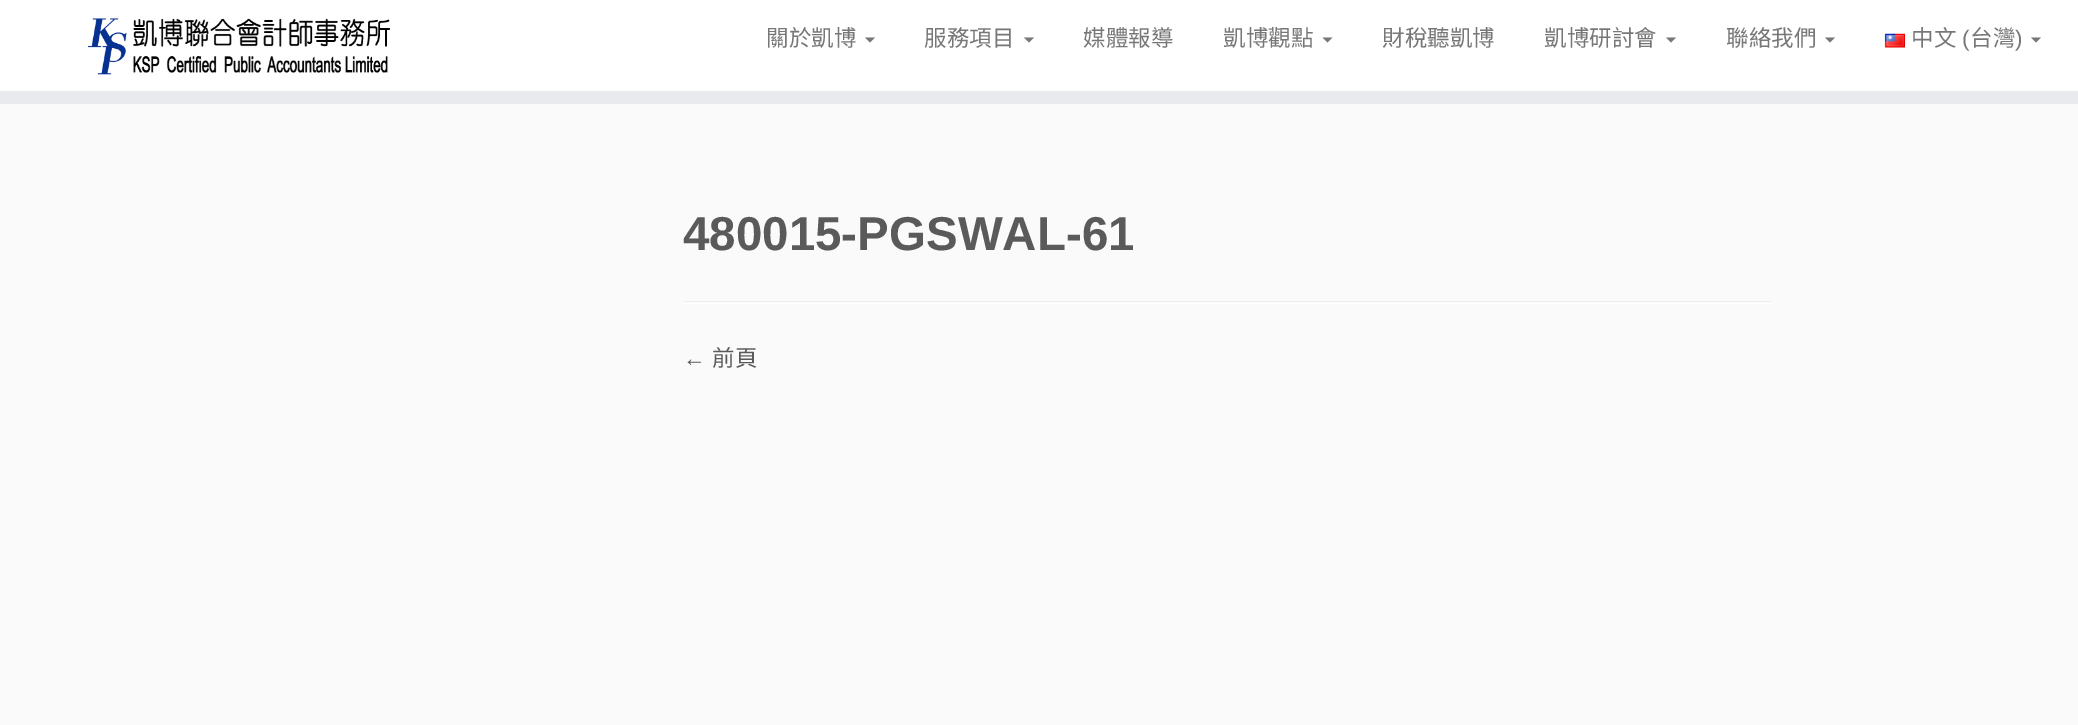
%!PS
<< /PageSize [2078 725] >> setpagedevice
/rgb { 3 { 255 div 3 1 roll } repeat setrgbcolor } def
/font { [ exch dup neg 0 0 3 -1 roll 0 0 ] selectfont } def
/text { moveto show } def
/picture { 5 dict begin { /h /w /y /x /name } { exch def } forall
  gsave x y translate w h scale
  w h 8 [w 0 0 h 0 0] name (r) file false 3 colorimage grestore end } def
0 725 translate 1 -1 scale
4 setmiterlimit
250 250 250 rgb
0 0 2078 725 rectfill
255 255 255 rgb
0 0 2078 91 rectfill
233 234 238 rgb
0 91 2078 13 rectfill
(img_01.rgb) 88 18 302 57 picture
119 119 119 rgb
865 37.5 moveto 10 0 rlineto -5 5 rlineto closepath fill
1024 37.5 moveto 10 0 rlineto -5 5 rlineto closepath fill
1322.5 37.5 moveto 10 0 rlineto -5 5 rlineto closepath fill
1666 37.5 moveto 10 0 rlineto -5 5 rlineto closepath fill
1825 37.5 moveto 10 0 rlineto -5 5 rlineto closepath fill
(img_02.rgb) 1884 33 21 15 picture
2031 37.5 moveto 10 0 rlineto -5 5 rlineto closepath fill
238 238 238 rgb
684 301 1087 1 rectfill
255 255 255 rgb
684 303 1087 1 rectfill
/NotoSansCJKTC-Regular 22.5 font
119 119 119 rgb
(關於凱博) 766 46 text
(服務項目) 924 46 text
(媒體報導) 1083 46 text
(凱博觀點) 1223 46 text
(財稅聽凱博) 1382 46 text
(凱博研討會) 1544 46 text
(聯絡我們) 1726 46 text
(中文) 1911 46 text
/LiberationSans-Regular 22.5 font
(\() 1962 46 text
/NotoSansCJKTC-Regular 22.5 font
(台灣) 1970 46 text
/LiberationSans-Regular 22.5 font
(\)) 2015 46 text
/LiberationSans-Bold 47.5 font
90 90 90 rgb
(480015-PGSWAL-61) 683 250 text
/LiberationSans-Regular 22.5 font
(←) 683 366 text
/NotoSansCJKTC-Regular 22.5 font
(前頁) 712 366 text
showpage
